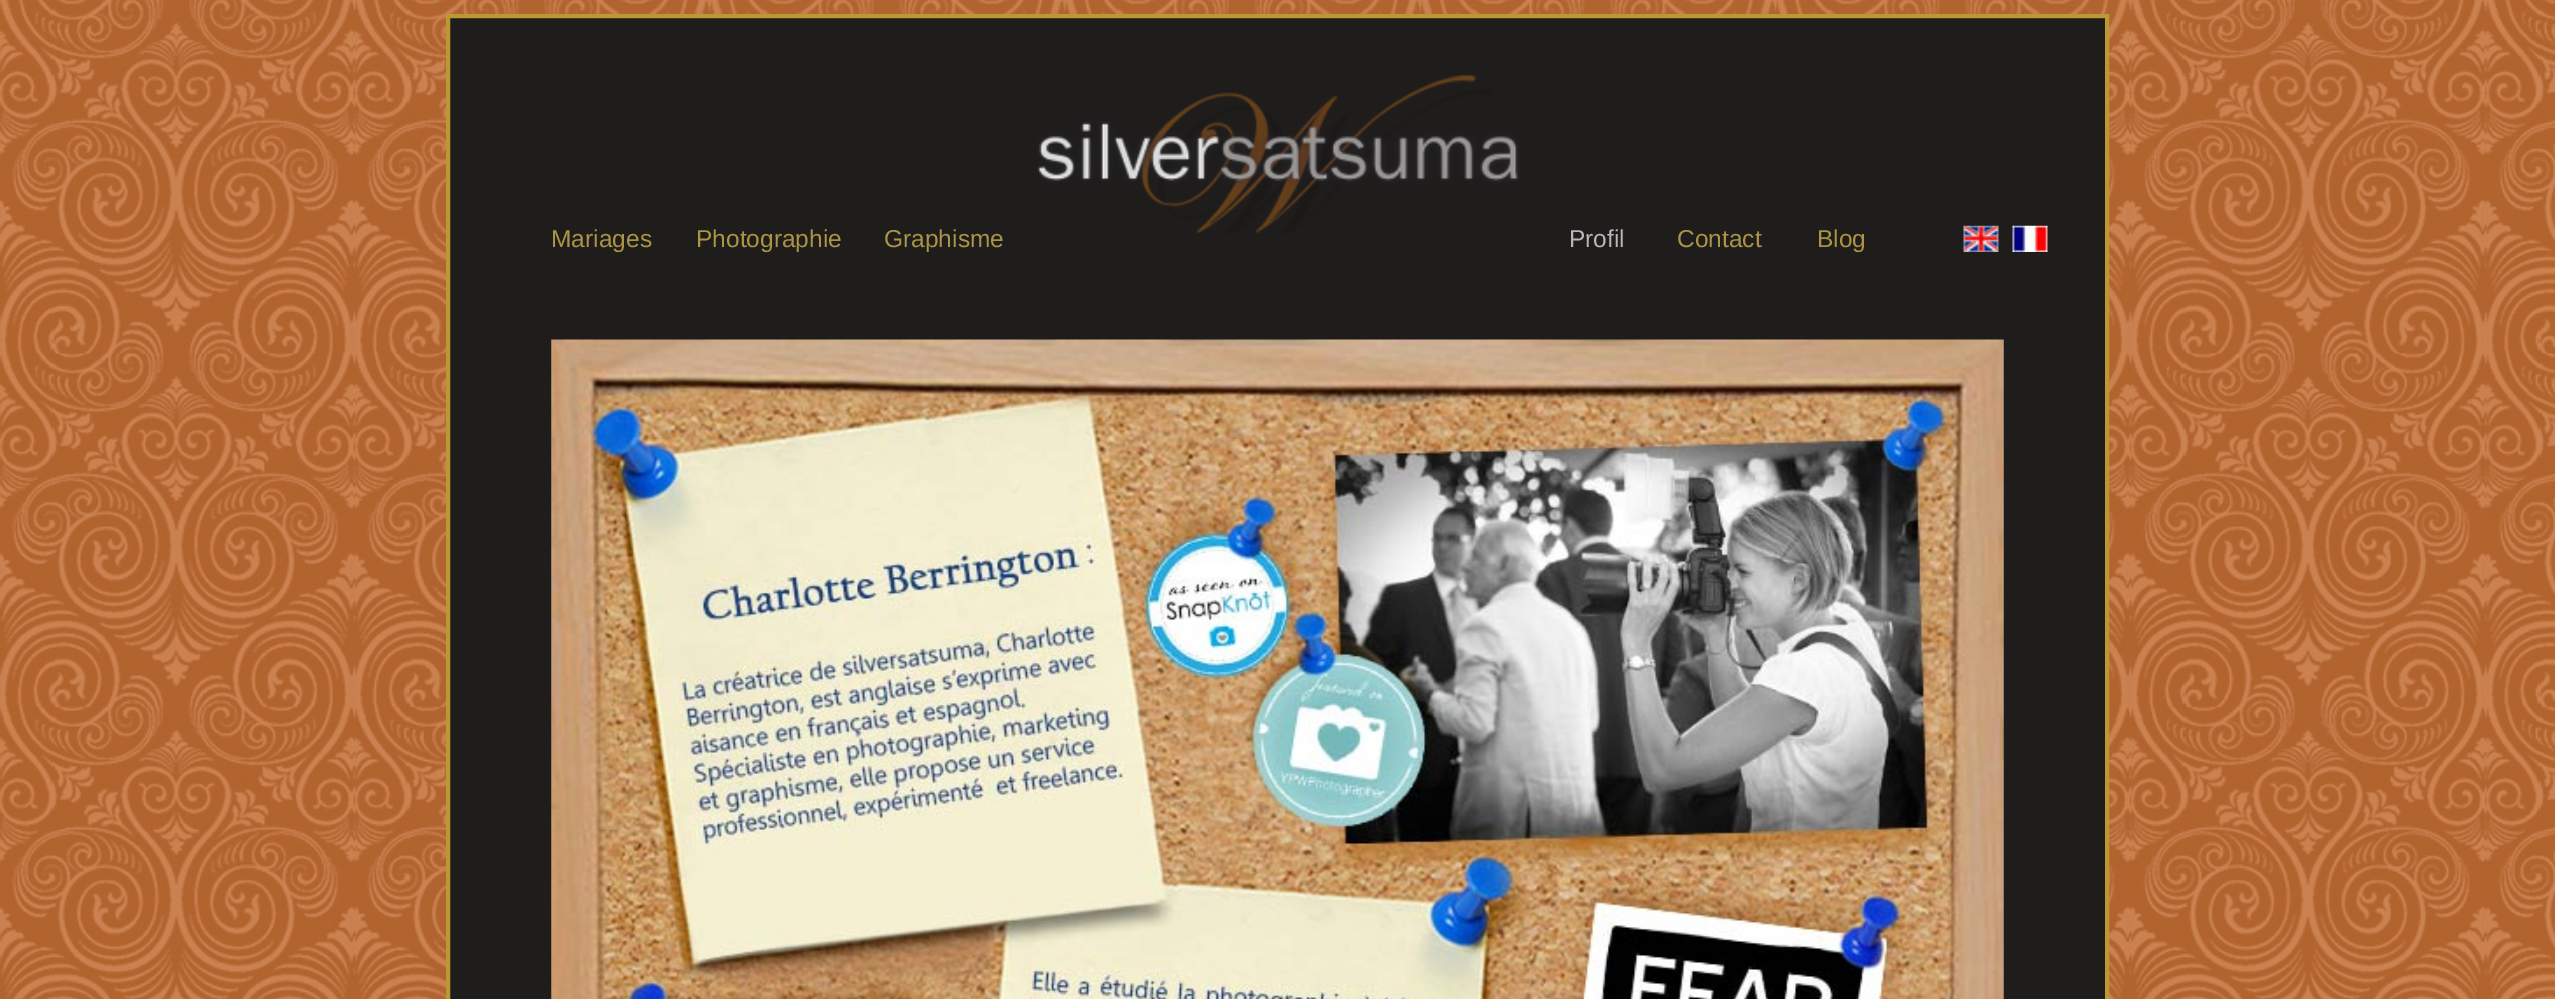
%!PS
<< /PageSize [2555 999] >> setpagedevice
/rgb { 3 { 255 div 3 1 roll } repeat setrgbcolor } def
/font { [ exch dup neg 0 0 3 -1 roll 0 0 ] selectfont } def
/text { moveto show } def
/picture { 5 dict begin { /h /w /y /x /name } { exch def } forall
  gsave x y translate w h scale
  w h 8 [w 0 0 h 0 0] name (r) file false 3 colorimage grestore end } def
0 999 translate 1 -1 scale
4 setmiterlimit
255 255 255 rgb
0 0 2555 999 rectfill
(img_01.rgb) 0 0 2555 999 picture
31 28 28 rgb
448 16 moveto 1659 0 rlineto 0 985 rlineto -1659 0 rlineto closepath gsave fill grestore
186 153 52 rgb
4 setlinewidth
stroke
(img_02.rgb) 1037 75 483 159 picture
(img_03.rgb) 1963 225 36 27 picture
(img_04.rgb) 2012 225 36 27 picture
(img_05.rgb) 551 339 1453 660 picture
/LiberationSans-Regular 24.5 font
171 149 68 rgb
(Mariages) 551 247 text
(Photographie) 696 247 text
(Graphisme) 884 247 text
183 183 183 rgb
(Profil) 1569 247 text
171 149 68 rgb
(Contact) 1677 247 text
(Blog) 1817 247 text
showpage
